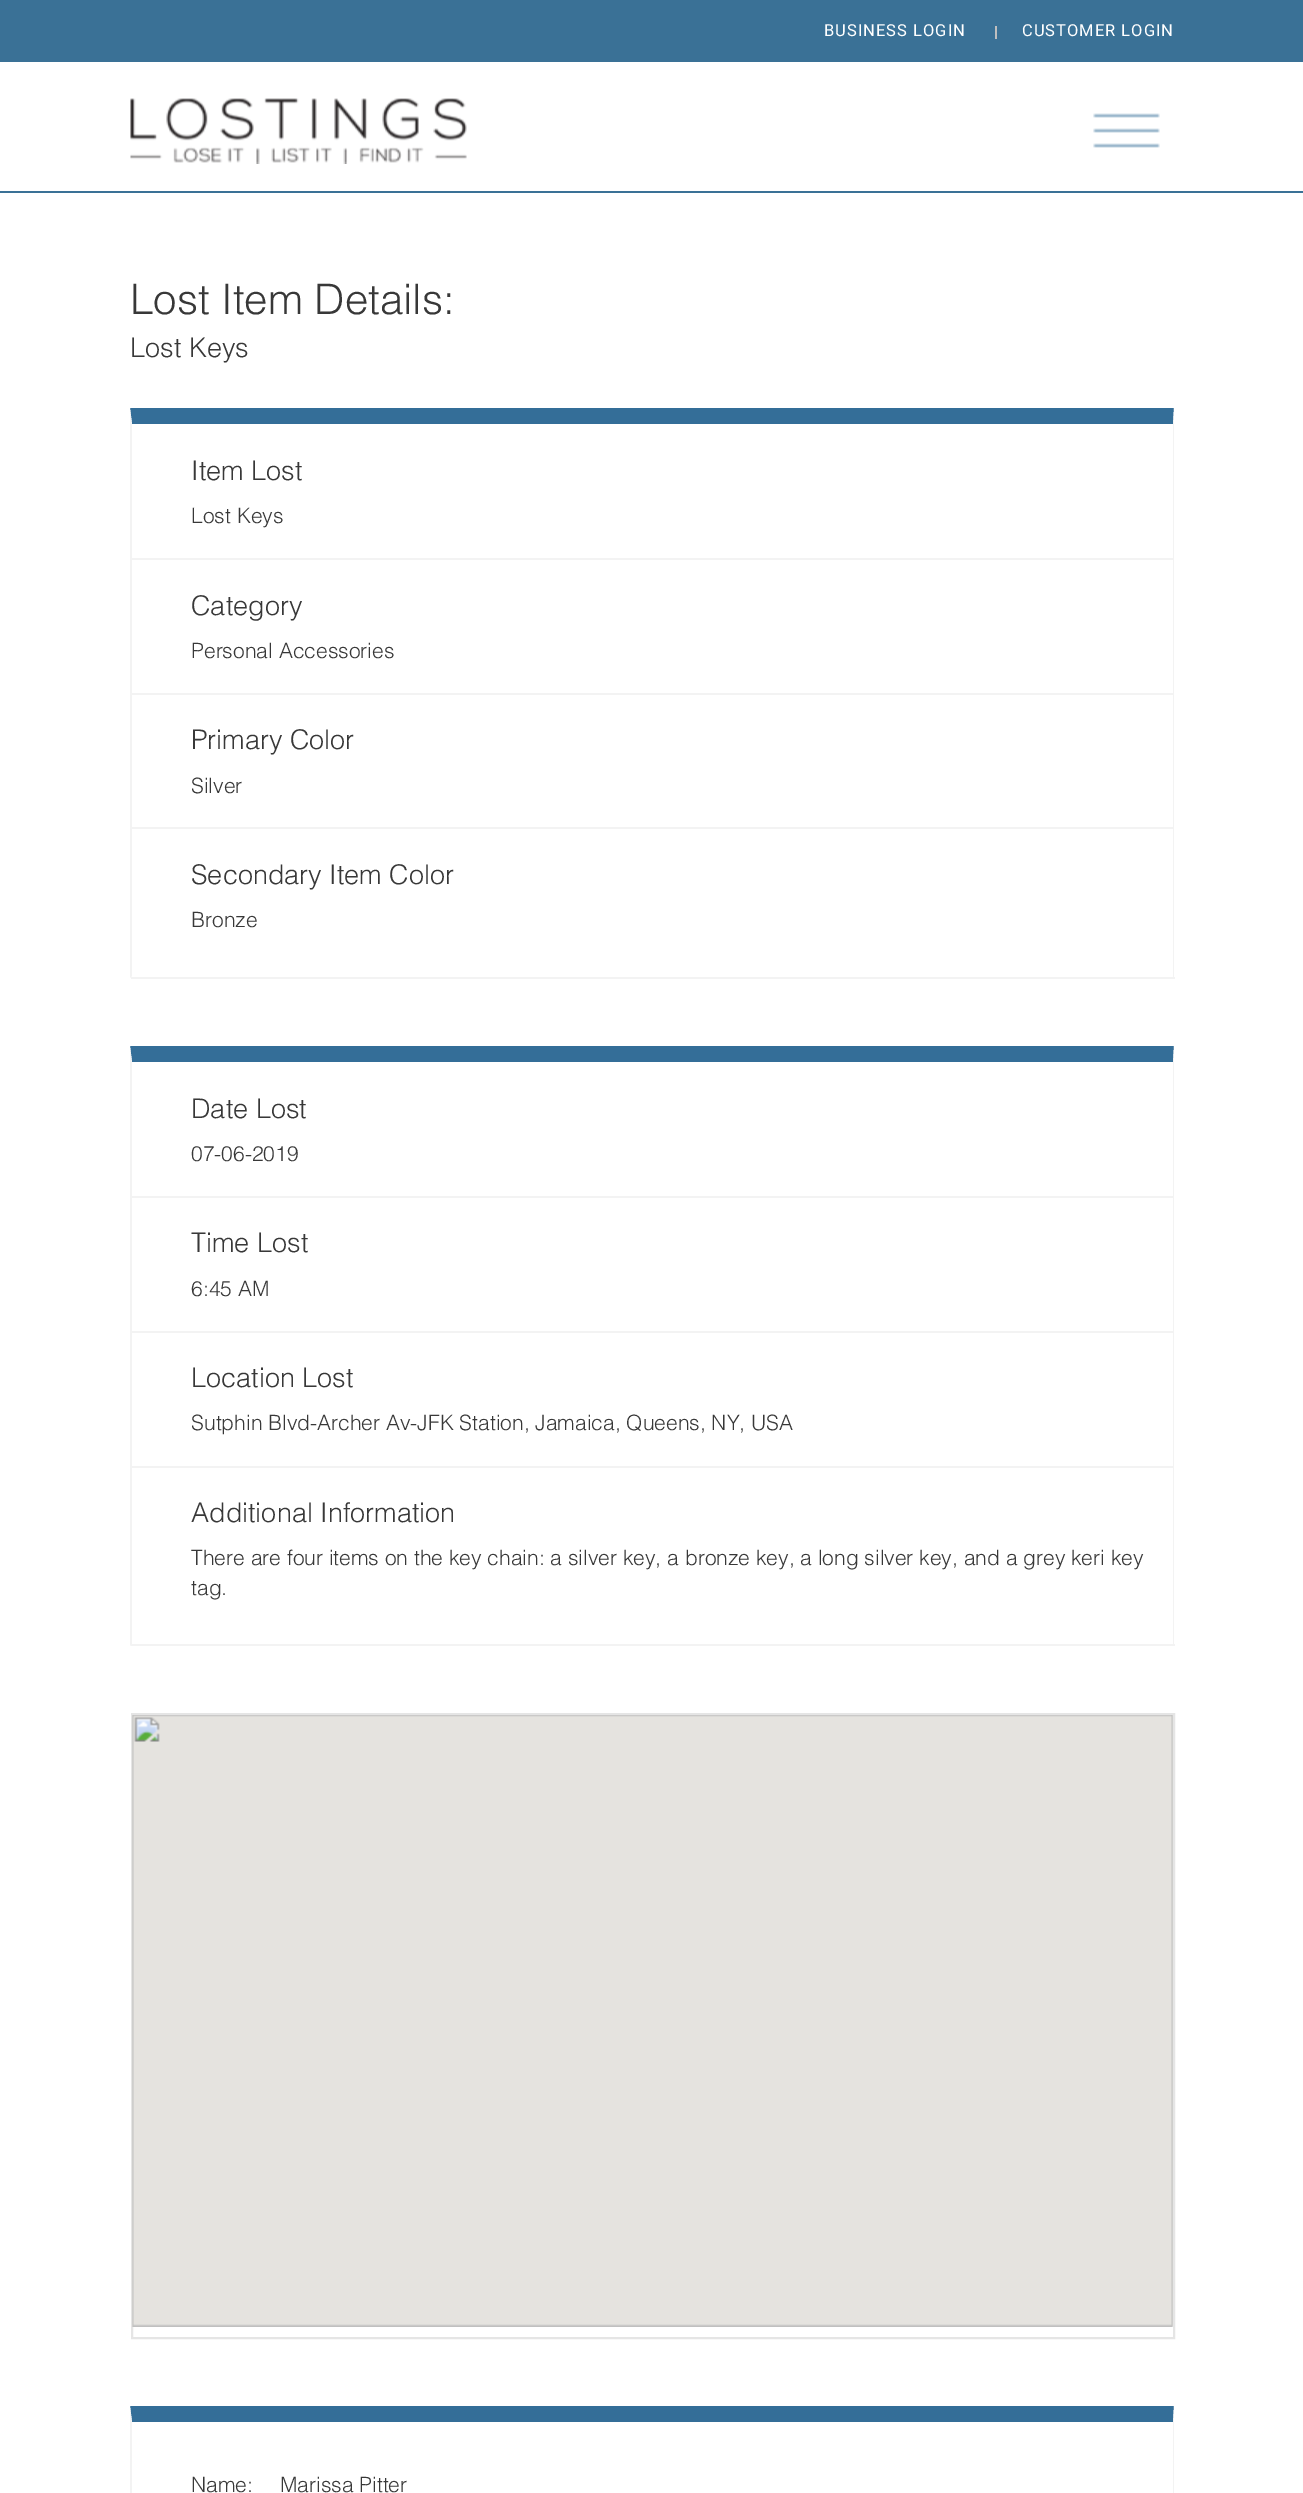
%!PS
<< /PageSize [1303 2493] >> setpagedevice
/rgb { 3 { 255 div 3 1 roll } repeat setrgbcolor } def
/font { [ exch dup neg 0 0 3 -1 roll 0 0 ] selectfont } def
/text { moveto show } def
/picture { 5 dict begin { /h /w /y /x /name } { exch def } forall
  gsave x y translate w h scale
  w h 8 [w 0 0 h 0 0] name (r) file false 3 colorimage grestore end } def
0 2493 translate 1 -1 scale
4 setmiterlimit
255 255 255 rgb
0 0 1303 2493 rectfill
58 113 150 rgb
0 191 1303 2 rectfill
0 0 1303 62 rectfill
191 191 191 rgb
995 26 2 13 rectfill
(img_01.rgb) 130 98 337 66 picture
(img_02.rgb) 1093 113 67 35 picture
52 110 152 rgb
130 408 moveto 1044 0 rlineto -1 16 rlineto -1041 0 rlineto closepath fill
243 243 243 rgb
1174 408 moveto 0 570 rlineto -1 -2 rlineto 0 -552 rlineto closepath fill
131 977 1044 2 rectfill
130 978 moveto 0 -570 rlineto 2 16 rlineto 0 552 rlineto closepath fill
132 558 1041 2 rectfill
132 693 1041 2 rectfill
132 827 1041 2 rectfill
52 110 152 rgb
130 1046 moveto 1044 0 rlineto -1 16 rlineto -1041 0 rlineto closepath fill
243 243 243 rgb
1174 1046 moveto 0 600 rlineto -1 -2 rlineto 0 -582 rlineto closepath fill
131 1644 1044 2 rectfill
130 1646 moveto 0 -600 rlineto 2 16 rlineto 0 582 rlineto closepath fill
132 1196 1041 2 rectfill
132 1331 1041 2 rectfill
132 1466 1041 2 rectfill
229 229 229 rgb
2 setlinewidth
132 1714 1042 624 rectstroke
(img_03.rgb) 132 1715 1041 612 picture
52 110 152 rgb
130 2406 moveto 1044 0 rlineto -1 16 rlineto -1041 0 rlineto closepath fill
243 243 243 rgb
1174 2406 moveto 0 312 rlineto -1 -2 rlineto 0 -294 rlineto closepath fill
130 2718 moveto 0 -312 rlineto 2 16 rlineto 0 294 rlineto closepath fill
/Roboto-Regular 16.5 font
255 255 255 rgb
824 36 moveto 1 0 (BUSINESS LOGIN) ashow
1022 36 moveto 1 0 (CUSTOMER LOGIN) ashow
/Helvetica-Light 42 font
56 56 56 rgb
(Lost Item Details:) 130 314 text
/Helvetica-Light 27 font
(Lost Keys) 130 357 text
(Item Lost) 191 480 text
/Helvetica-Light 21 font
(Lost Keys) 191 523 text
/Helvetica-Light 27 font
(Category) 191 615 text
/Helvetica-Light 21 font
(Personal Accessories) 191 658 text
/Helvetica-Light 27 font
(Primary Color) 191 749 text
/Helvetica-Light 21 font
(Silver) 191 793 text
/Helvetica-Light 27 font
(Secondary Item Color) 191 884 text
/Helvetica-Light 21 font
(Bronze) 191 927 text
/Helvetica-Light 27 font
(Date Lost) 191 1118 text
/Helvetica-Light 21 font
(07-06-2019) 191 1161 text
/Helvetica-Light 27 font
(Time Lost) 191 1252 text
/Helvetica-Light 21 font
(6:45 AM) 191 1296 text
/Helvetica-Light 27 font
(Location Lost) 191 1387 text
/Helvetica-Light 21 font
(Sutphin Blvd-Archer Av-JFK Station, Jamaica, Queens, NY, USA) 191 1430 text
/Helvetica-Light 27 font
(Additional Information) 191 1522 text
/Helvetica-Light 21 font
(There are four items on the key chain: a silver key, a bronze key, a long silver key, and a grey keri key) 191 1565 text
(tag.) 191 1595 text
(Name:) 191 2492 text
(Marissa Pitter) 280 2492 text
showpage
